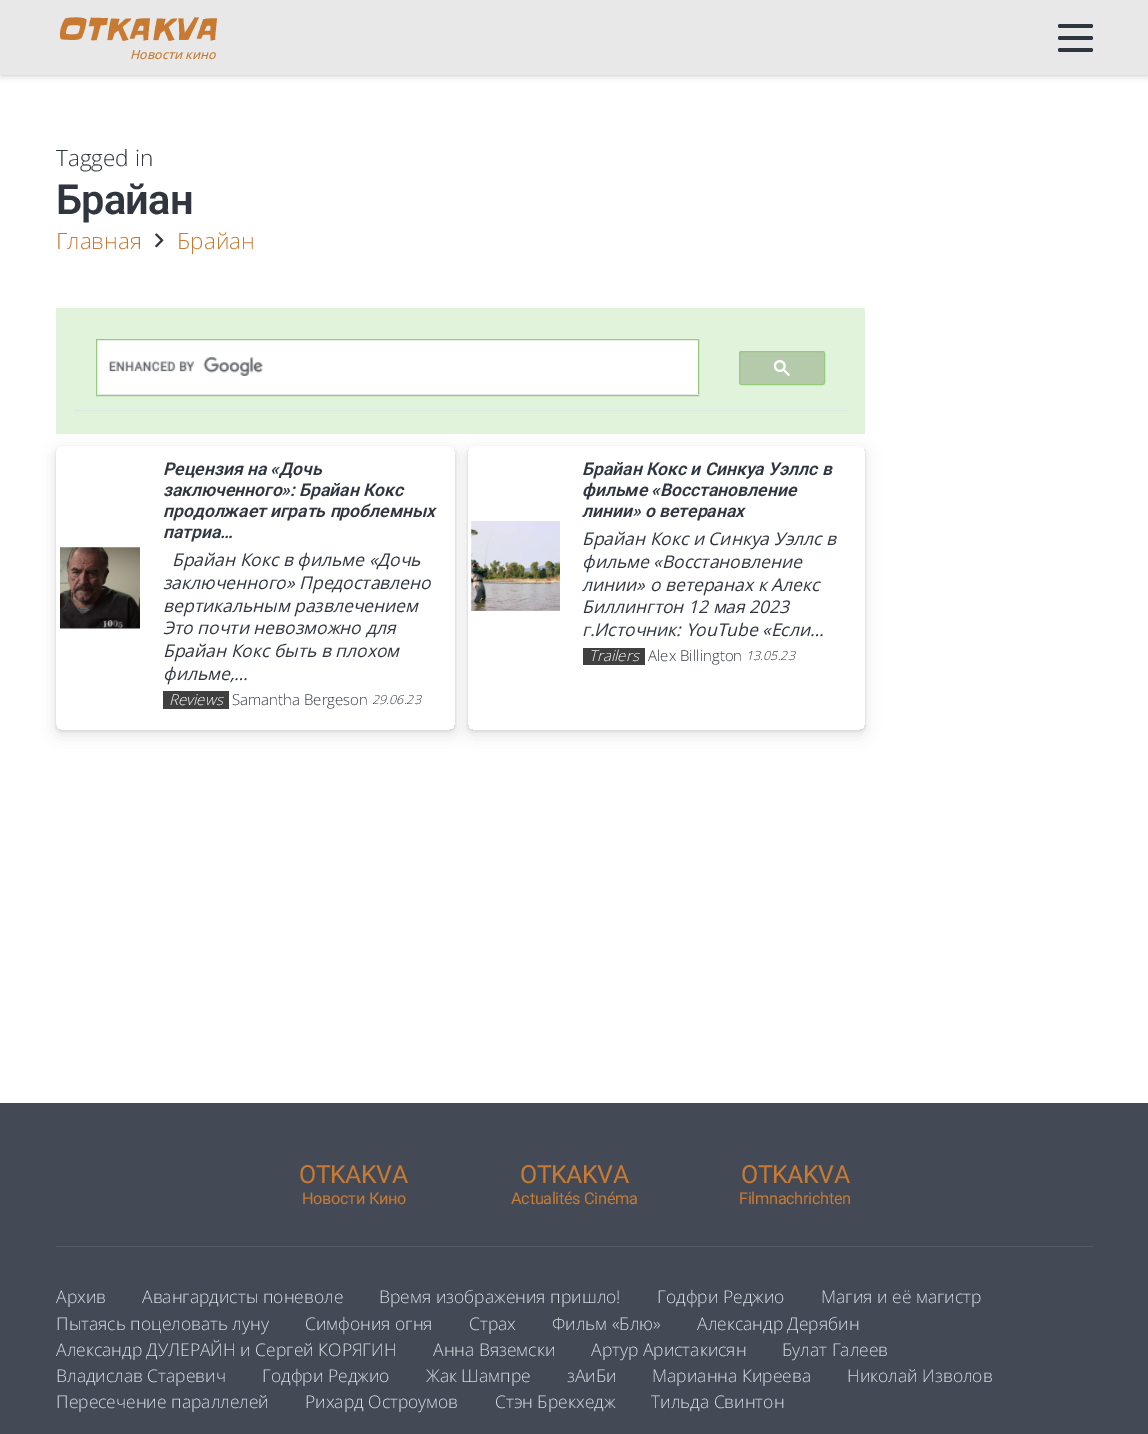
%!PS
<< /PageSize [1148 1434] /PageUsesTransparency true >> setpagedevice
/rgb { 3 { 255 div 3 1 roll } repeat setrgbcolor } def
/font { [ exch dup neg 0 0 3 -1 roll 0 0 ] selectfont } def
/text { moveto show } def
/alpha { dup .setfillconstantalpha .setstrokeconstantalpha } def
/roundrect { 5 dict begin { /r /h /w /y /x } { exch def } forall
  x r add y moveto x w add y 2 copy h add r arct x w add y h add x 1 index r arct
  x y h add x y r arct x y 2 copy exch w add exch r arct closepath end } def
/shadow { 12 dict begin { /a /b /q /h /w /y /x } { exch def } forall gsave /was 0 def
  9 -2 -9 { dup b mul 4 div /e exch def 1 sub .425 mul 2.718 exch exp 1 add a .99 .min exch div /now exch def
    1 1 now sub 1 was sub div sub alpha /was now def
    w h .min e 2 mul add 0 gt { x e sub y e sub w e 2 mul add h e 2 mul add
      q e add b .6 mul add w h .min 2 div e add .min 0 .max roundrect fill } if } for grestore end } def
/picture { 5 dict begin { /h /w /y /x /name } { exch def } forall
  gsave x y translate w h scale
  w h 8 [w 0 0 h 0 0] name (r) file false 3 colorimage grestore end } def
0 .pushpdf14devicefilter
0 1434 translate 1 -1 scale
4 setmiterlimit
255 255 255 rgb
0 0 1148 1434 rectfill
0 0 0 rgb
1 4 1147 72 0 0.5 0.05 shadow
1 5 1147 73 0 3 0.1 shadow
232 232 232 rgb
0 0 1148 75 rectfill
48 54 64 rgb
1058 36 35 4 2 roundrect fill
1058 24 35 4 2 roundrect fill
1058 48 35 4 2 roundrect fill
(img_01.rgb) 155 233 9 15 picture
225 243 218 rgb
56 308 809 126 rectfill
255 255 255 rgb
96.5 339.5 moveto 602 0 rlineto 0 56 rlineto -602 0 rlineto closepath gsave fill grestore
148 204 122 rgb
stroke
(img_02.rgb) 109 357 154 19 picture
225 229 232 rgb
98 394 601 1 rectfill
74 410 775 1 rectfill
181 201 171 rgb
739.5 351.5 85 33 2 roundrect gsave fill grestore
148 204 122 rgb
stroke
(img_03.rgb) 774 360 16 16 picture
gsave
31 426 moveto 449 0 rlineto 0 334 rlineto -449 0 rlineto closepath 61 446 moveto 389 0 rlineto 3 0 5 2 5 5 rcurveto 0 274 rlineto 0 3 -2 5 -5 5 rcurveto -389 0 rlineto -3 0 -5 -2 -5 -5 rcurveto 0 -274 rlineto 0 -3 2 -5 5 -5 rcurveto closepath eoclip newpath
0 0 0 rgb
56 451 399 284 5 8 0.1 shadow
grestore
gsave
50 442 moveto 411 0 rlineto 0 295 rlineto -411 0 rlineto closepath 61 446 moveto 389 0 rlineto 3 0 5 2 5 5 rcurveto 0 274 rlineto 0 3 -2 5 -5 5 rcurveto -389 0 rlineto -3 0 -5 -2 -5 -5 rcurveto 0 -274 rlineto 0 -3 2 -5 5 -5 rcurveto closepath eoclip newpath
0 0 0 rgb
56 448 399 283 5 1.5 0.1 shadow
grestore
(img_04.rgb) 60 547 80 82 picture
64 64 64 rgb
163 691 66 18 rectfill
gsave
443 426 moveto 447 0 rlineto 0 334 rlineto -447 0 rlineto closepath 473 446 moveto 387 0 rlineto 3 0 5 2 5 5 rcurveto 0 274 rlineto 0 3 -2 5 -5 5 rcurveto -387 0 rlineto -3 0 -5 -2 -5 -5 rcurveto 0 -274 rlineto 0 -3 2 -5 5 -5 rcurveto closepath eoclip newpath
0 0 0 rgb
468 451 397 284 5 8 0.1 shadow
grestore
gsave
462 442 moveto 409 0 rlineto 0 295 rlineto -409 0 rlineto closepath 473 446 moveto 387 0 rlineto 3 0 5 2 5 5 rcurveto 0 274 rlineto 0 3 -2 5 -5 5 rcurveto -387 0 rlineto -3 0 -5 -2 -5 -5 rcurveto 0 -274 rlineto 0 -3 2 -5 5 -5 rcurveto closepath eoclip newpath
0 0 0 rgb
468 448 397 283 5 1.5 0.1 shadow
grestore
(img_05.rgb) 471 521 89 90 picture
583 648 62 17 rectfill
67 73 85 rgb
0 1103 1148 331 rectfill
84 90 102 rgb
56 1246 1037 1 rectfill
/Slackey-Italic 30 font
200 122 50 rgb
(OTKAKVA) 56 40 text
/OpenSans-MediumItalic 12.5 font
(Новости кино) 130 59 text
/OpenSans-Light 22.5 font
48 54 64 rgb
(Tagged in) 56 166 text
/Roboto-SemiBold 41.5 font
56 214 moveto -0.75 0 (Брайан) ashow
/OpenSans-Light 22.5 font
200 122 50 rgb
(Главная) 56 249 text
(Брайан) 177 249 text
/Roboto-SemiBoldItalic 17.5 font
48 54 64 rgb
(Рецензия на «Дочь) 163 475 text
(заключенного»: Брайан Кокс) 163 496 text
(продолжает играть проблемных) 163 517 text
(патриа…) 163 538 text
/OpenSans-Italic 17.5 font
(Брайан Кокс в фильме «Дочь) 172 566 text
(заключенного» Предоставлено) 163 589 text
(вертикальным развлечением) 163 612 text
(Это почти невозможно для) 163 634 text
(Брайан Кокс быть в плохом) 163 657 text
(фильме,…) 163 680 text
/OpenSans-LightItalic 15 font
255 255 255 rgb
(Reviews) 169 705 text
/OpenSans-Light 15 font
48 54 64 rgb
(Samantha Bergeson) 232 705 text
/OpenSans-LightItalic 12.5 font
(29.06.23) 372 704 text
/Roboto-SemiBoldItalic 17.5 font
(Брайан Кокс и Синкуа Уэллс в) 582 475 text
(фильме «Восстановление) 582 496 text
(линии» о ветеранах) 582 517 text
/OpenSans-Italic 17.5 font
(Брайан Кокс и Синкуа Уэллс в) 582 545 text
(фильме «Восстановление) 582 568 text
(линии» о ветеранах к Алекс) 582 591 text
(Биллингтон 12 мая 2023) 582 613 text
(г.Источник: YouTube «Если…) 582 636 text
/OpenSans-LightItalic 15 font
255 255 255 rgb
(Trailers) 589 661 text
/OpenSans-Light 15 font
48 54 64 rgb
(Alex Billington) 648 661 text
/OpenSans-LightItalic 12.5 font
(13.05.23) 746 660 text
/Roboto-Regular 25 font
200 122 50 rgb
299 1183 moveto -0.5 0 (OTKAKVA) ashow
/Roboto-Regular 16.25 font
302 1204 moveto -0.3 0 (Новости Кино) ashow
/Roboto-Regular 25 font
520 1183 moveto -0.5 0 (OTKAKVA) ashow
/Roboto-Regular 16.25 font
511 1204 moveto -0.3 0 (Actualités Cinéma) ashow
/Roboto-Regular 25 font
741 1183 moveto -0.5 0 (OTKAKVA) ashow
/Roboto-Regular 16.25 font
739 1204 moveto -0.3 0 (Filmnachrichten) ashow
/OpenSans-Light 17.5 font
215 221 224 rgb
(Архив) 56 1303 text
(Авангардисты поневоле) 142 1303 text
(Время изображения пришло!) 379 1303 text
(Годфри Реджио) 657 1303 text
(Магия и её магистр) 821 1303 text
(Пытаясь поцеловать луну) 56 1330 text
(Симфония огня) 305 1330 text
(Страх) 469 1330 text
(Фильм «Блю») 552 1330 text
(Александр Дерябин) 697 1330 text
(Александр ДУЛЕРАЙН и Сергей КОРЯГИН) 56 1356 text
(Анна Вяземски) 433 1356 text
(Артур Аристакисян) 591 1356 text
(Булат Галеев) 782 1356 text
(Владислав Старевич) 56 1382 text
(Годфри Реджио) 262 1382 text
(Жак Шампре) 426 1382 text
(зАиБи) 567 1382 text
(Марианна Киреева) 652 1382 text
(Николай Изволов) 847 1382 text
(Пересечение параллелей) 56 1408 text
(Рихард Остроумов) 305 1408 text
(Стэн Брекхедж) 495 1408 text
(Тильда Свинтон) 651 1408 text
.poppdf14devicefilter showpage
